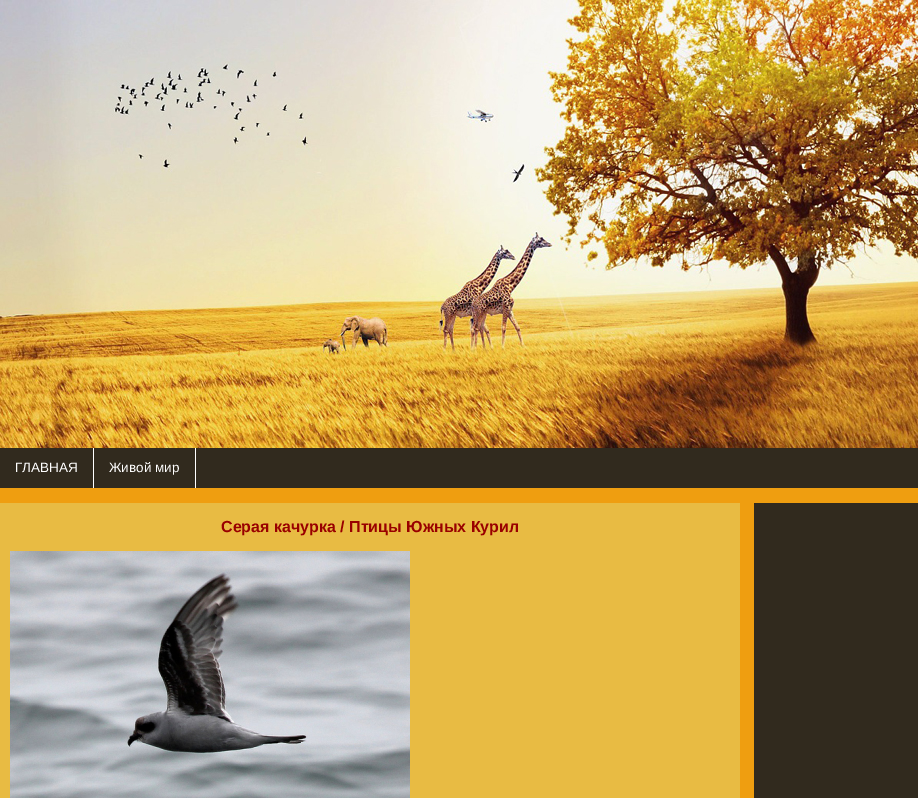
%!PS
<< /PageSize [918 798] >> setpagedevice
/rgb { 3 { 255 div 3 1 roll } repeat setrgbcolor } def
/font { [ exch dup neg 0 0 3 -1 roll 0 0 ] selectfont } def
/text { moveto show } def
/picture { 5 dict begin { /h /w /y /x /name } { exch def } forall
  gsave x y translate w h scale
  w h 8 [w 0 0 h 0 0] name (r) file false 3 colorimage grestore end } def
0 798 translate 1 -1 scale
4 setmiterlimit
239 158 16 rgb
0 0 918 798 rectfill
(img_01.rgb) 0 0 918 448 picture
49 42 30 rgb
0 448 918 40 rectfill
255 255 255 rgb
93 448 1 40 rectfill
195 448 1 40 rectfill
232 187 67 rgb
0 503 740 295 rectfill
(img_02.rgb) 10 551 400 247 picture
49 42 30 rgb
754 503 164 295 rectfill
/LiberationSans-Regular 13.5 font
255 255 255 rgb
(ГЛАВНАЯ) 15 472 text
(Живой мир) 109 472 text
/LiberationSans-Bold 16 font
153 0 0 rgb
(Серая качурка / Птицы Южных Курил) 221 532 text
showpage
